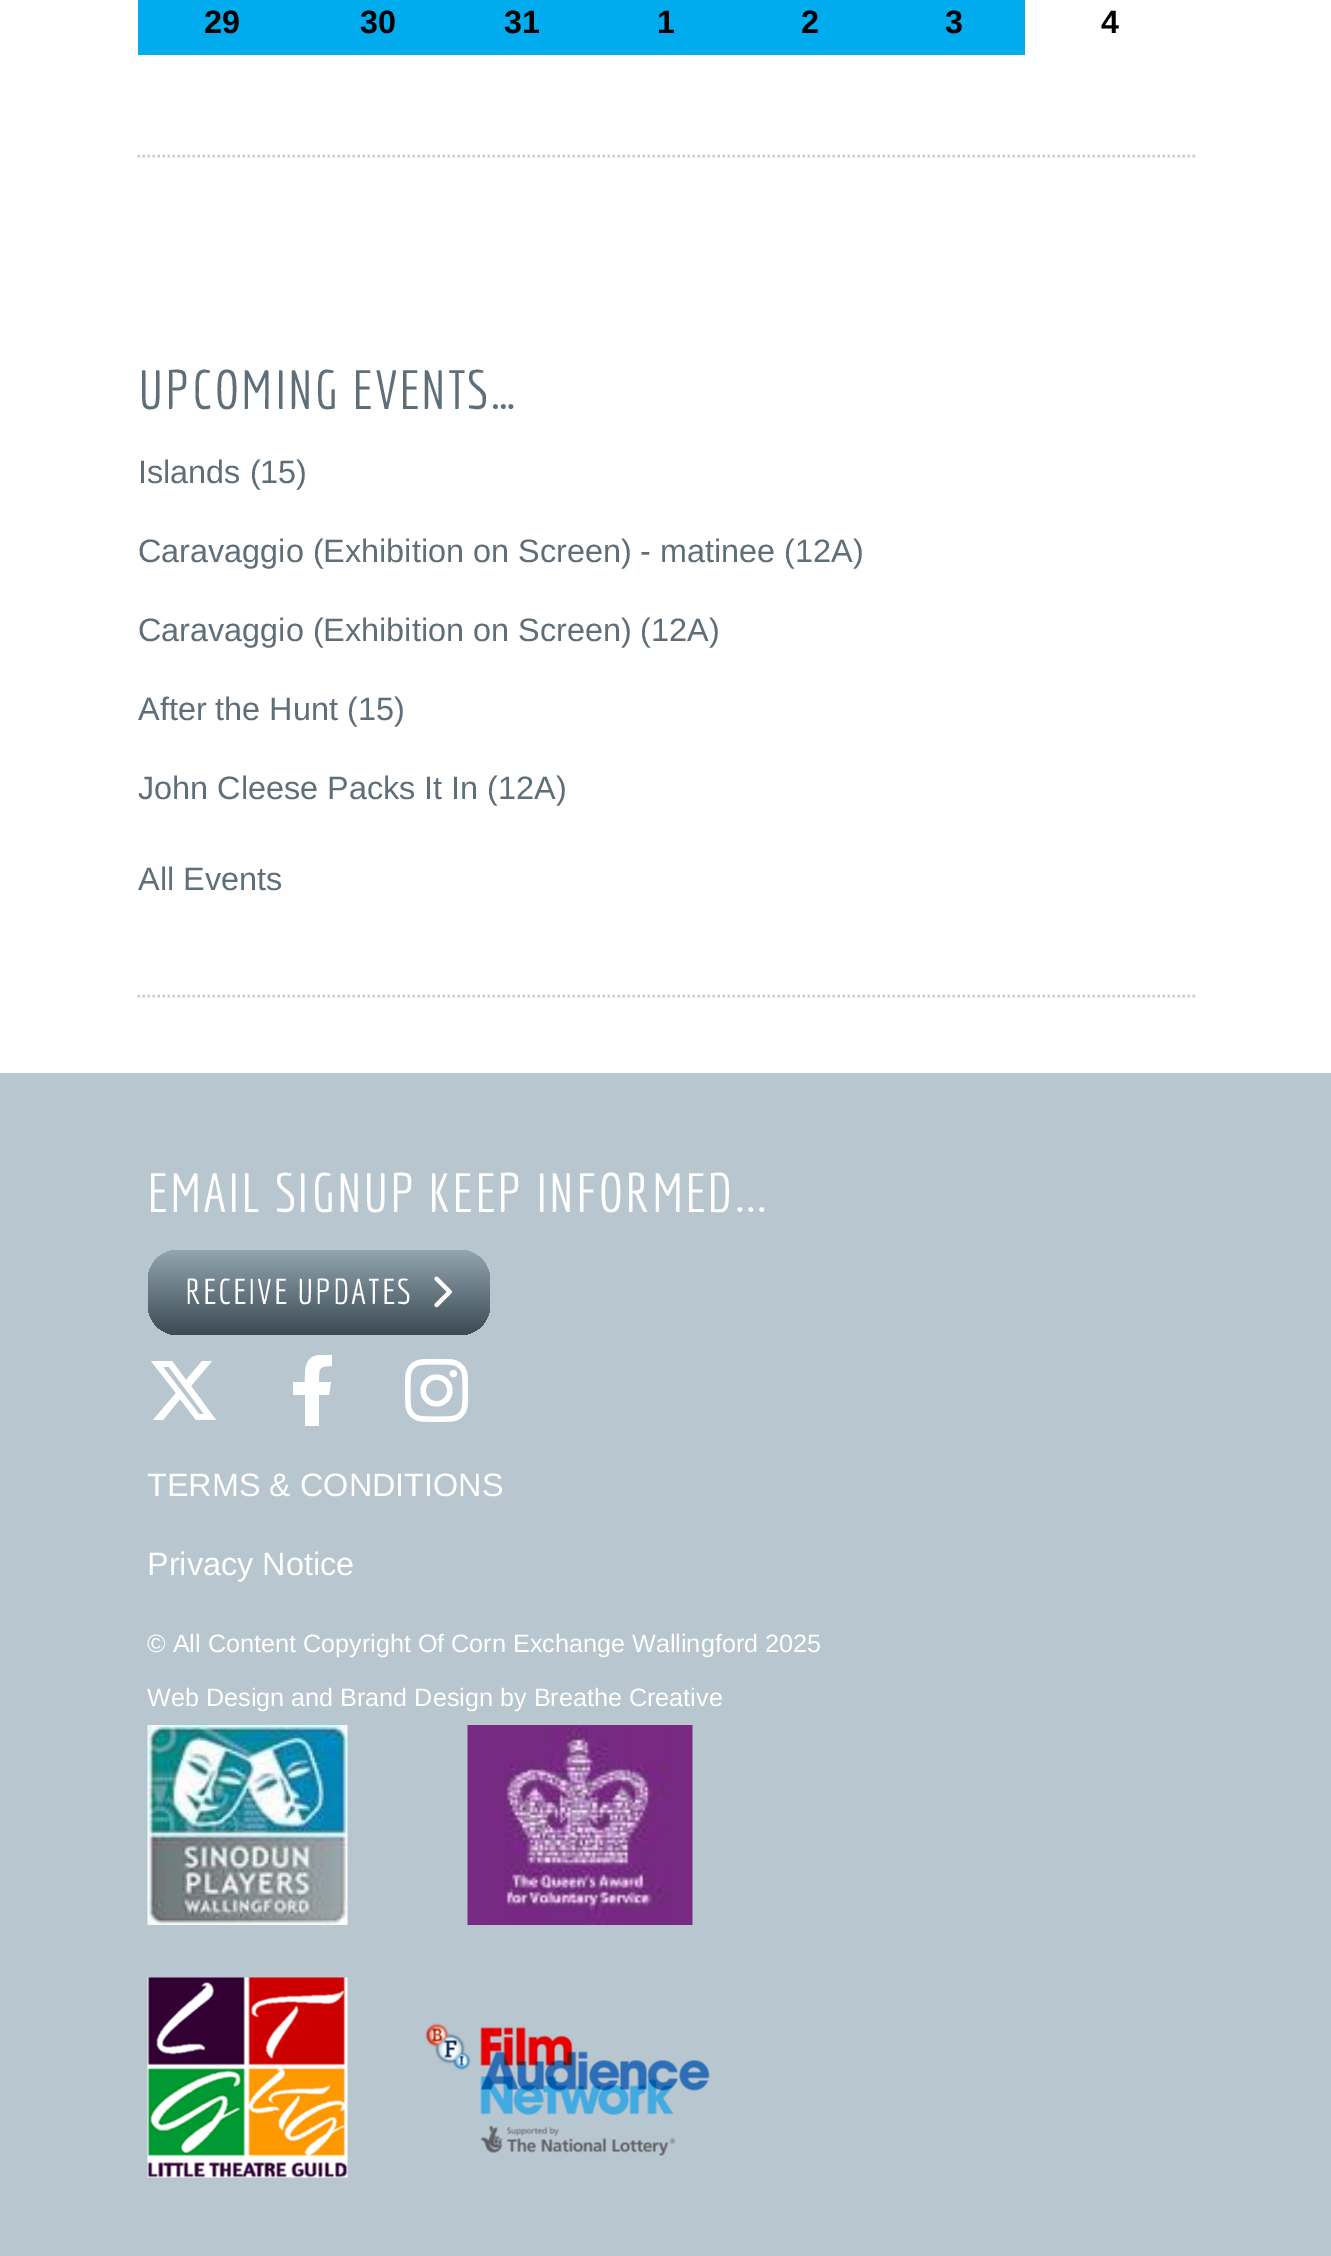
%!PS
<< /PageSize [1331 2256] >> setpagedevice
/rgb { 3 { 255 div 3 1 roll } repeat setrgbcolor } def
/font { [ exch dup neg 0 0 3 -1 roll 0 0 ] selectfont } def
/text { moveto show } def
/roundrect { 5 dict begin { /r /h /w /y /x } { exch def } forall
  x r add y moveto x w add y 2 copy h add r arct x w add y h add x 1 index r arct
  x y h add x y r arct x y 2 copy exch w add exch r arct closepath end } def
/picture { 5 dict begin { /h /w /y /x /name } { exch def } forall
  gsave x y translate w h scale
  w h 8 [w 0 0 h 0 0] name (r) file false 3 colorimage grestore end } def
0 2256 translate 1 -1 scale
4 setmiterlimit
255 255 255 rgb
0 0 1331 2256 rectfill
0 172 237 rgb
138 0 887 55 rectfill
204 204 204 rgb
2.5 setlinewidth
[2.5 2.5] 0 setdash
137.5 156 moveto 1057.5 0 rlineto stroke
137.5 996 moveto 1057.5 0 rlineto stroke
184 198 207 rgb
0 1073 1331 1183 rectfill
gsave 148 1250 342 85 30 roundrect clip newpath
<< /ShadingType 2 /ColorSpace /DeviceRGB /Coords [319 1250 319 1335] /Extend [true true] /Function << /FunctionType 2 /Domain [0 1] /C0 [0.576 0.647 0.69] /C1 [0.231 0.29 0.325] /N 1 >> >> shfill grestore
(img_01.rgb) 434 1276 18 32 picture
255 255 255 rgb
202 1361 moveto 10 0 rlineto -21 25 rlineto 25 34 rlineto -20 0 rlineto -16 -21 rlineto -17 21 rlineto -10 0 rlineto 23 -27 rlineto -25 -32 rlineto 21 0 rlineto 14 19 rlineto closepath 199 1414 moveto 5 0 rlineto -35 -47 rlineto -6 0 rlineto closepath fill
329 1395 moveto 2 -13 rlineto -12 0 rlineto 0 -13 -1 -16 13 -16 rcurveto 0 -11 rlineto -12 0 rlineto -16 1 -15 15 -15 27 rcurveto -12 0 rlineto 0 13 rlineto 12 0 rlineto 0 31 rlineto 14 0 rlineto 0 -31 rlineto closepath fill
(img_02.rgb) 405 1359 63 63 picture
(img_03.rgb) 147 1725 201 200 picture
(img_04.rgb) 467 1725 226 200 picture
(img_05.rgb) 147 1977 201 201 picture
(img_06.rgb) 425 2023 285 133 picture
/Arimo-Bold 32.4 font
0 0 0 rgb
(29) 204 33 text
(30) 360 33 text
(31) 504 33 text
(1) 657 33 text
(2) 801 33 text
(3) 945 33 text
(4) 1101 33 text
/Economica-Regular 54 font
95 111 121 rgb
138 409 moveto 1.75 0 (UPCOMING EVENTS…) ashow
/Arimo-Regular 32.4 font
(Islands \(15\)) 138 483 text
(Caravaggio \(Exhibition on Screen\) - matinee \(12A\)) 138 562 text
(Caravaggio \(Exhibition on Screen\) \(12A\)) 138 641 text
(After the Hunt \(15\)) 138 720 text
(John Cleese Packs It In \(12A\)) 138 799 text
(All Events) 138 890 text
/Economica-Regular 54 font
255 255 255 rgb
147 1212 moveto 1.75 0 (EMAIL SIGNUP KEEP INFORMED...) ashow
/Economica-Regular 35 font
185 1304 moveto 1.75 0 (RECEIVE UPDATES) ashow
/Arimo-Regular 32.4 font
(TERMS & CONDITIONS) 147 1496 text
(Privacy Notice) 147 1575 text
/Arimo-Regular 25.2 font
(© All Content Copyright Of Corn Exchange Wallingford 2025) 147 1652 text
(Web Design and Brand Design by Breathe Creative) 147 1706 text
showpage
